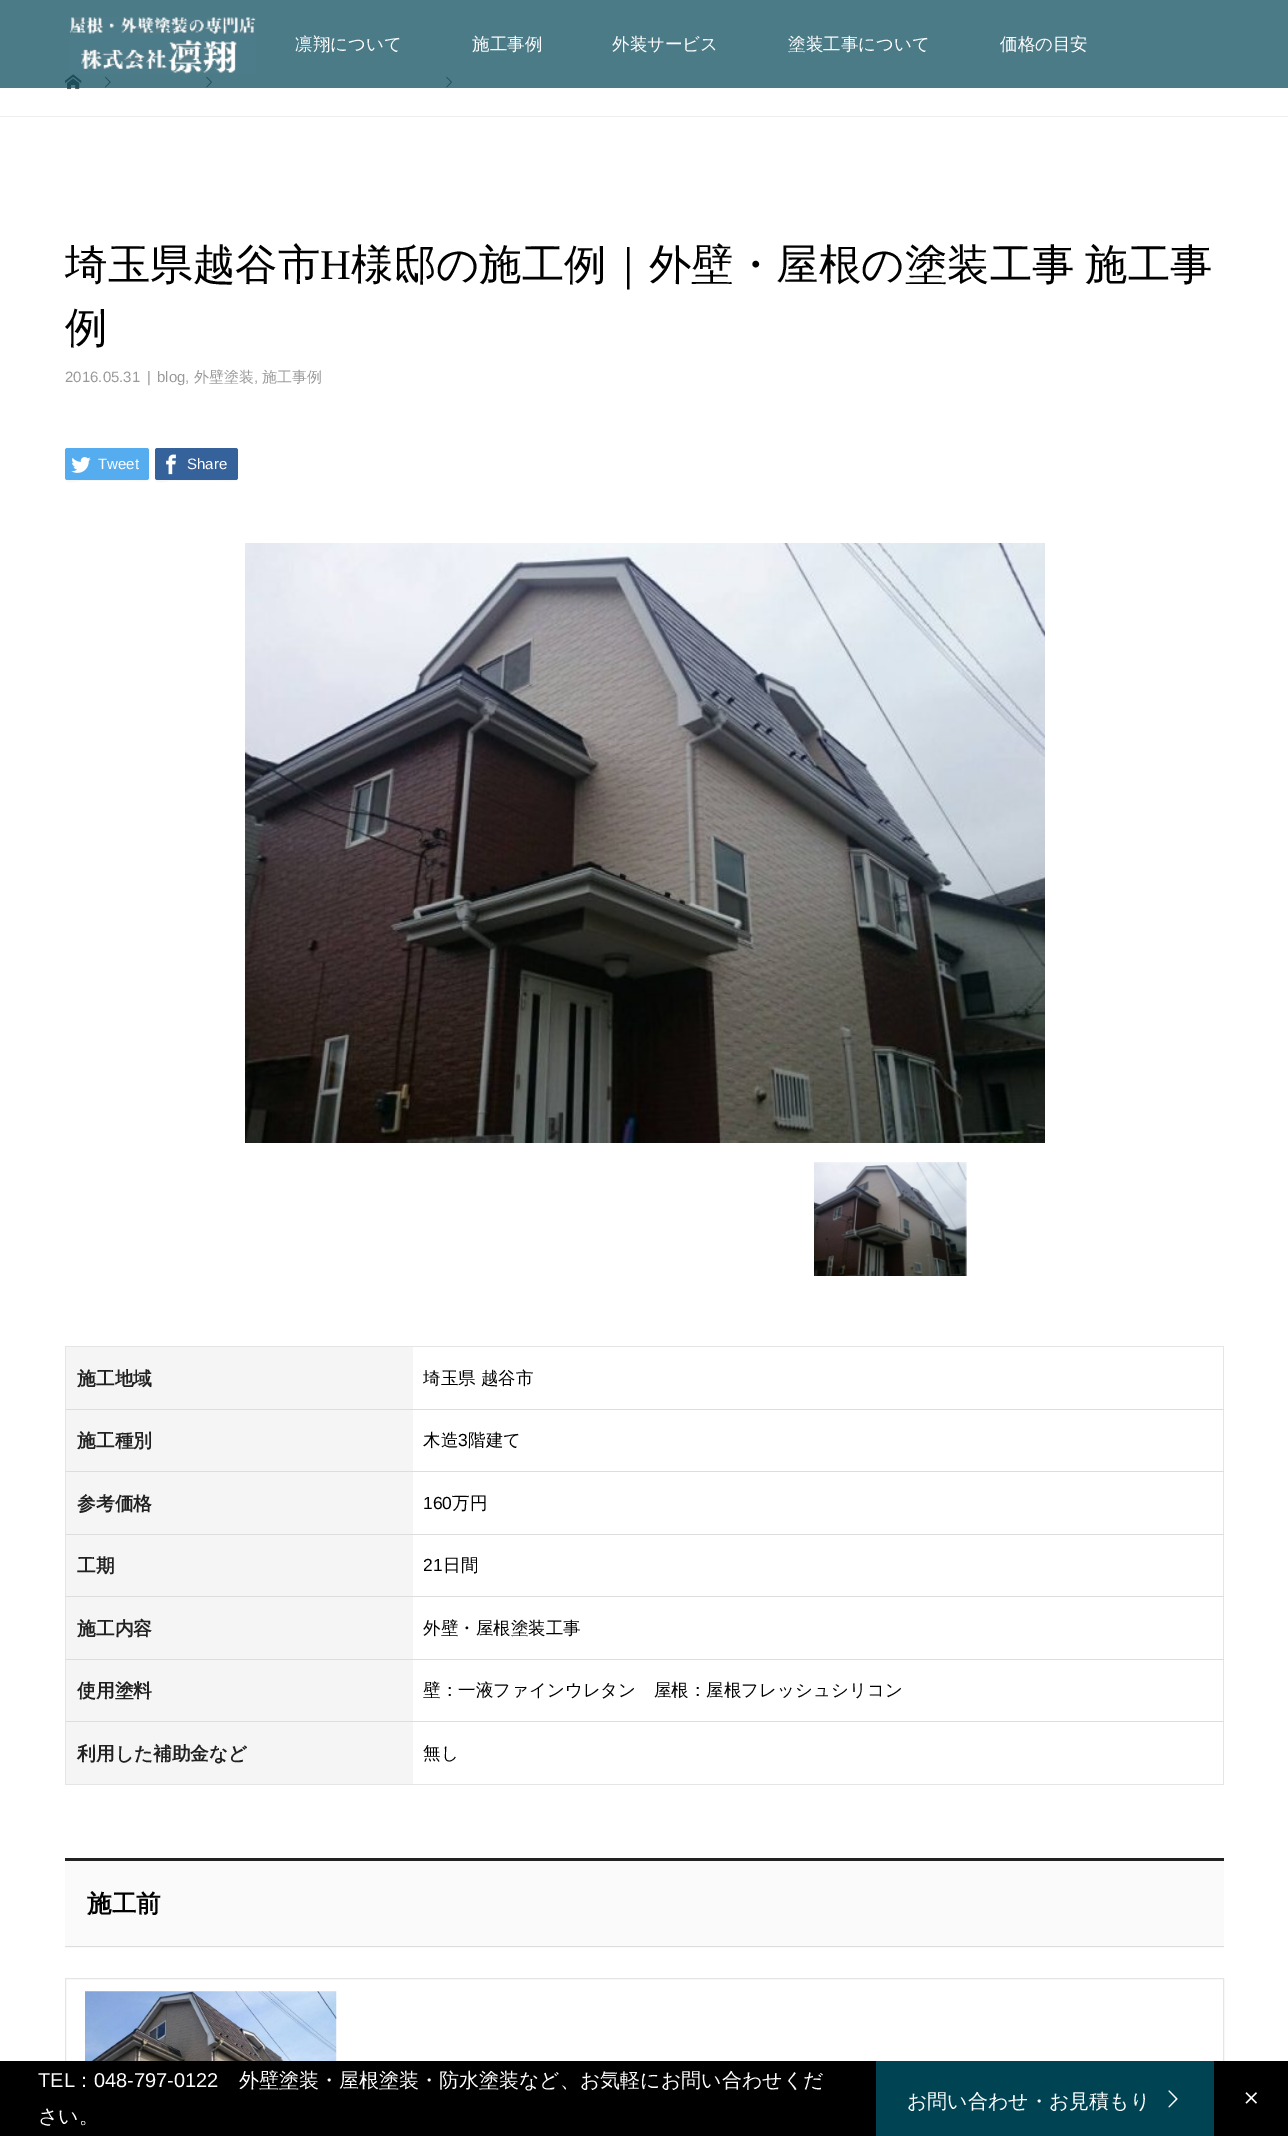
%!PS
<< /PageSize [1288 2136] /PageUsesTransparency true >> setpagedevice
/rgb { 3 { 255 div 3 1 roll } repeat setrgbcolor } def
/font { [ exch dup neg 0 0 3 -1 roll 0 0 ] selectfont } def
/text { moveto show } def
/alpha { dup .setfillconstantalpha .setstrokeconstantalpha } def
/roundrect { 5 dict begin { /r /h /w /y /x } { exch def } forall
  x r add y moveto x w add y 2 copy h add r arct x w add y h add x 1 index r arct
  x y h add x y r arct x y 2 copy exch w add exch r arct closepath end } def
/picture { 5 dict begin { /h /w /y /x /name } { exch def } forall
  gsave x y translate w h scale
  w h 8 [w 0 0 h 0 0] name (r) file false 3 colorimage grestore end } def
0 .pushpdf14devicefilter
0 2136 translate 1 -1 scale
4 setmiterlimit
255 255 255 rgb
0 0 1288 2136 rectfill
(img_02.rgb) 65 74 17 16 picture
(img_03.rgb) 105 76 6 12 picture
(img_04.rgb) 206 76 6 12 picture
(img_04.rgb) 446 76 6 12 picture
0.7 alpha
0 67 86 rgb
0 0 1288 88 rectfill
1 alpha
(img_01.rgb) 69 17 187 57 picture
238 238 238 rgb
0 116 1288 1 rectfill
247 247 247 rgb
65 478 moveto 0 7 12 3 16 3 rcurveto 52 0 rlineto 18 0 16 3 16 -11 rcurveto 0 -20 rlineto 0 28 rlineto 0 1 -1 2 -3 2 rcurveto -78 0 rlineto -2 0 -3 -1 -3 -2 rcurveto closepath fill
85 172 238 rgb
65 448 84 32 2.5 roundrect fill
(img_05.rgb) 71 457 20 16 picture
247 247 247 rgb
155 478 moveto 0 7 12 3 15 3 rcurveto 52 0 rlineto 20 0 16 3 16 -16 rcurveto 0 -3 1 -13 0 -15 rcurveto 0 28 rlineto 0 1 -2 2 -3 2 rcurveto -77 0 rlineto -2 0 -3 -1 -3 -2 rcurveto closepath fill
53 98 154 rgb
155 448 83 32 2.5 roundrect fill
(img_06.rgb) 166 454 10 21 picture
(img_07.rgb) 245 543 800 600 picture
(img_08.rgb) 814 1162 153 114 picture
229 229 229 rgb
65 1346 1159 1 rectfill
1223 1346 1 439 rectfill
65 1784 1159 1 rectfill
65 1346 1 439 rectfill
245 245 245 rgb
66 1347 347 62 rectfill
221 221 221 rgb
65 1409 1159 1 rectfill
245 245 245 rgb
66 1410 347 61 rectfill
221 221 221 rgb
65 1471 1159 1 rectfill
245 245 245 rgb
66 1472 347 62 rectfill
221 221 221 rgb
65 1534 1159 1 rectfill
245 245 245 rgb
66 1535 347 61 rectfill
221 221 221 rgb
65 1596 1159 1 rectfill
245 245 245 rgb
66 1597 347 62 rectfill
221 221 221 rgb
65 1659 1159 1 rectfill
245 245 245 rgb
66 1660 347 61 rectfill
221 221 221 rgb
65 1721 1159 1 rectfill
245 245 245 rgb
66 1722 347 62 rectfill
250 250 250 rgb
65 1861 1159 87 rectfill
34 34 34 rgb
65 1858 1159 3 rectfill
221 221 221 rgb
65 1946 1159 1 rectfill
229 229 229 rgb
65.5 1978.5 1158 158 rectstroke
(img_09.rgb) 85 1991 252 70 picture
0 0 0 rgb
0 2061 1288 75 rectfill
0 67 83 rgb
876 2061 338 75 rectfill
(img_10.rgb) 1168 2090 10 18 picture
(img_11.rgb) 1245 2092 12 12 picture
/WenQuanYiZenHei-Medium 17.5 font
255 255 255 rgb
(凛翔について) 295 50 text
(施工事例) 472 50 text
(外装サービス) 612 50 text
(塗装工事について) 788 50 text
(価格の目安) 1000 50 text
/WenQuanYiZenHei-Medium 42.5 font
0 0 0 rgb
(埼玉県越谷市) 65 279 text
/LiberationSerif-Regular 42.5 font
(H) 320 279 text
/WenQuanYiZenHei-Medium 42.5 font
351 279 moveto -2 0 32 (様邸の施工例｜外壁・屋根の塗装工事 施工事) widthshow
(例) 65 342 text
/LiberationSans-Regular 15 font
153 153 153 rgb
(2016.05.31) 65 382 text
(|) 147 382 text
(blog,) 157 382 text
/WenQuanYiZenHei-Medium 15 font
(外壁塗装) 194 382 text
/LiberationSans-Regular 15 font
(,) 254 382 text
/WenQuanYiZenHei-Medium 15 font
(施工事例) 262 382 text
/LiberationSans-Regular 15 font
255 255 255 rgb
(Tweet) 98 469 text
(Share) 187 469 text
/WenQuanYiZenHei-Bold 18.75 font
33 33 33 rgb
(施工地域) 77 1385 text
/WenQuanYiZenHei-Medium 17.5 font
0 0 0 rgb
(埼玉県 越谷市) 423 1384 text
/WenQuanYiZenHei-Bold 18.75 font
33 33 33 rgb
(施工種別) 77 1447 text
/WenQuanYiZenHei-Medium 17.5 font
0 0 0 rgb
(木造) 423 1446 text
/LiberationSans-Regular 17.5 font
(3) 458 1446 text
/WenQuanYiZenHei-Medium 17.5 font
(階建て) 468 1446 text
/WenQuanYiZenHei-Bold 18.75 font
33 33 33 rgb
(参考価格) 77 1510 text
/LiberationSans-Regular 17.5 font
0 0 0 rgb
(160) 423 1509 text
/WenQuanYiZenHei-Medium 17.5 font
(万円) 452 1509 text
/WenQuanYiZenHei-Bold 18.75 font
33 33 33 rgb
(工期) 77 1572 text
/LiberationSans-Regular 17.5 font
0 0 0 rgb
(21) 423 1571 text
/WenQuanYiZenHei-Medium 17.5 font
(日間) 443 1571 text
/WenQuanYiZenHei-Bold 18.75 font
33 33 33 rgb
(施工内容) 77 1635 text
/WenQuanYiZenHei-Medium 17.5 font
0 0 0 rgb
(外壁・屋根塗装工事) 423 1634 text
/WenQuanYiZenHei-Bold 18.75 font
33 33 33 rgb
(使用塗料) 77 1697 text
/WenQuanYiZenHei-Medium 17.5 font
0 0 0 rgb
(壁：一液ファインウレタン　屋根：屋根フレッシュシリコン) 423 1696 text
/WenQuanYiZenHei-Bold 18.75 font
33 33 33 rgb
(利用した補助金など) 77 1760 text
/WenQuanYiZenHei-Medium 17.5 font
0 0 0 rgb
(無し) 423 1759 text
/WenQuanYiZenHei-Bold 24.5 font
(施工前) 87 1912 text
/LiberationSans-Regular 20 font
255 255 255 rgb
(TEL) 38 2087 text
/WenQuanYiZenHei-Medium 20 font
(：) 74 2087 text
/LiberationSans-Regular 20 font
(048-797-0122) 94 2087 text
/WenQuanYiZenHei-Medium 20 font
(外壁塗装・屋根塗装・防水塗装など、お気軽にお問い合わせくだ) 239 2087 text
(さい。) 38 2123 text
(お問い合わせ・お見積もり) 907 2108 text
.poppdf14devicefilter showpage
